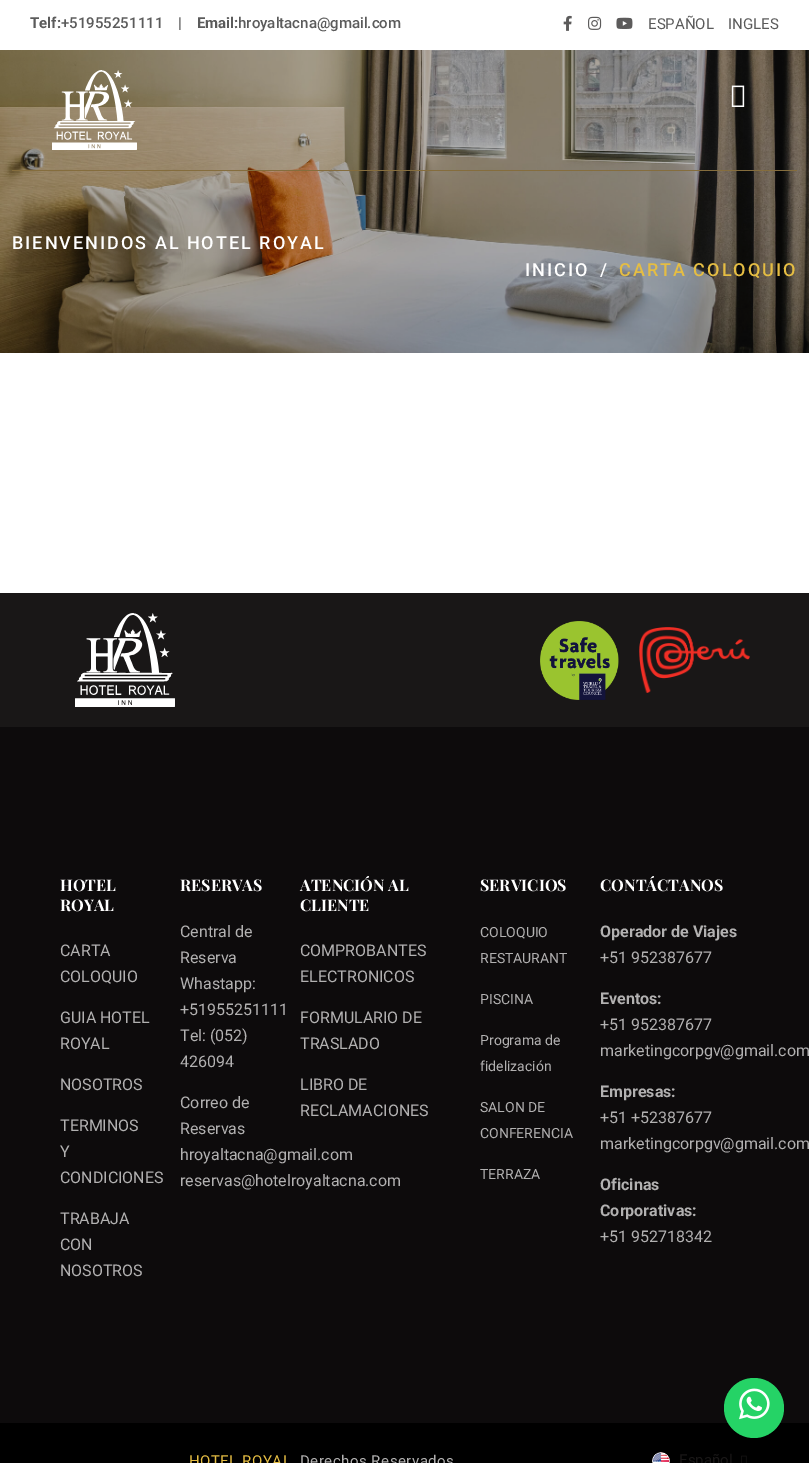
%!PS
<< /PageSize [809 1463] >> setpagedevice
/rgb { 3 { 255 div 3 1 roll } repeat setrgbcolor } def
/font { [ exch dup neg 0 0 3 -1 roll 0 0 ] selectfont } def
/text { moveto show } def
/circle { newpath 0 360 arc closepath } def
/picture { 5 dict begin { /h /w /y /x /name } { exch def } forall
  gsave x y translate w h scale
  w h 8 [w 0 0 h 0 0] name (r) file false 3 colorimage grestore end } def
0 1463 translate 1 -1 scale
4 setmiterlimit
255 255 255 rgb
0 0 809 1463 rectfill
(img_01.rgb) 563 15 9 16 picture
(img_02.rgb) 588 16 14 14 picture
(img_03.rgb) 616 17 17 12 picture
(img_06.rgb) 0 50 809 303 picture
133 109 61 rgb
12 170 785 1 rectfill
(img_04.rgb) 52 70 85 80 picture
(img_05.rgb) 731 85 14 22 picture
25 23 23 rgb
0 593 809 134 rectfill
(img_07.rgb) 75 613 100 94 picture
(img_08.rgb) 540 621 79 79 picture
(img_09.rgb) 639 627 111 66 picture
13 11 12 rgb
0 727 809 696 rectfill
0 0 0 rgb
0 1423 809 40 rectfill
(img_10.rgb) 652 1452 18 11 picture
(img_11.rgb) 741 1455 6 8 picture
37 211 102 rgb
754 1408 30 circle fill
(img_12.rgb) 739 1388 31 32 picture
/Roboto-Bold 15 font
91 91 91 rgb
(Telf:) 30 28 text
/Roboto-Medium 15 font
(+51955251111    |) 61 28 text
/Roboto-Bold 15 font
(Email:) 197 28 text
/Roboto-Medium 15 font
(hroyaltacna@gmail.com) 238 28 text
/Roboto-Regular 15 font
(ESPAÑOL) 648 29 text
(INGLES) 728 29 text
/Roboto-Medium 18 font
255 255 255 rgb
12 249 moveto 2 0 (BIENVENIDOS AL HOTEL ROYAL) ashow
525 276 moveto 2 0 (INICIO) ashow
600 276 moveto 2 0 (/) ashow
229 189 67 rgb
619 276 moveto 2 0 (CARTA COLOQUIO) ashow
/PlayfairDisplay-Bold 16 font
255 255 255 rgb
(HOTEL) 60 891 text
(ROYAL) 60 911 text
/Roboto-Regular 16 font
178 177 177 rgb
(CARTA) 60 956 text
(COLOQUIO) 60 982 text
(GUIA HOTEL) 60 1023 text
(ROYAL) 60 1049 text
(NOSOTROS) 60 1090 text
(TERMINOS) 60 1131 text
(Y) 60 1157 text
(CONDICIONES) 60 1183 text
(TRABAJA) 60 1224 text
(CON) 60 1250 text
(NOSOTROS) 60 1276 text
/PlayfairDisplay-Bold 16 font
255 255 255 rgb
(ATENCIÓN AL) 300 891 text
(CLIENTE) 300 911 text
/Roboto-Regular 16 font
178 177 177 rgb
(COMPROBANTES) 300 956 text
(ELECTRONICOS) 300 982 text
(FORMULARIO DE) 300 1023 text
(TRASLADO) 300 1049 text
(LIBRO DE) 300 1090 text
(RECLAMACIONES) 300 1116 text
/PlayfairDisplay-Bold 16 font
255 255 255 rgb
(CONTÁCTANOS) 600 891 text
/Roboto-Bold 16 font
178 177 177 rgb
(Operador de Viajes) 600 937 text
/Roboto-Regular 16 font
(+51 952387677) 600 963 text
/Roboto-Bold 16 font
(Eventos:) 600 1004 text
/Roboto-Regular 16 font
(+51 952387677) 600 1030 text
(marketingcorpgv@gmail.com) 600 1056 text
/Roboto-Bold 16 font
(Empresas:) 600 1097 text
/Roboto-Regular 16 font
(+51 +52387677) 600 1123 text
(marketingcorpgv@gmail.com) 600 1149 text
/Roboto-Bold 16 font
(Oficinas) 600 1190 text
(Corporativas:) 600 1216 text
/Roboto-Regular 16 font
(+51 952718342) 600 1242 text
/PlayfairDisplay-Bold 16 font
255 255 255 rgb
(RESERVAS) 180 891 text
/Roboto-Regular 16 font
178 177 177 rgb
(Central de) 180 937 text
(Reserva) 180 963 text
(Whastapp:) 180 989 text
(+51955251111) 180 1015 text
(Tel: \(052\)) 180 1041 text
(426094) 180 1067 text
(Correo de) 180 1108 text
(Reservas) 180 1134 text
(hroyaltacna@gmail.com) 180 1160 text
(reservas@hotelroyaltacna.com) 180 1186 text
/PlayfairDisplay-Bold 16 font
255 255 255 rgb
(SERVICIOS) 480 891 text
/Roboto-Regular 14 font
178 177 177 rgb
(COLOQUIO) 480 937 text
(RESTAURANT) 480 963 text
(PISCINA) 480 1004 text
(Programa de) 480 1045 text
(fidelización) 480 1071 text
(SALON DE) 480 1112 text
(CONFERENCIA) 480 1138 text
(TERRAZA) 480 1179 text
/Roboto-Regular 15 font
229 189 67 rgb
189 1466 moveto 0.5 0 (HOTEL ROYAL) ashow
178 177 177 rgb
300 1466 moveto 0.5 0 (Derechos Reservados) ashow
25 23 23 rgb
(Español) 679 1465 text
showpage
